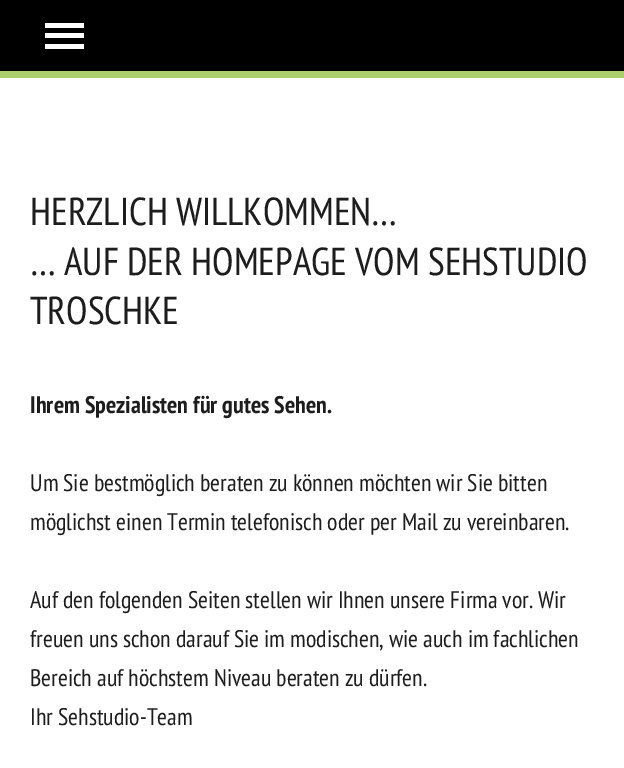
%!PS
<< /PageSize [624 768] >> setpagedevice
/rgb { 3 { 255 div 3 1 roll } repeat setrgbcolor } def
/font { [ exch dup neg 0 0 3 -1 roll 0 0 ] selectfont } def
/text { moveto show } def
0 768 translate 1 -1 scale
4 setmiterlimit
172 207 110 rgb
0 0 624 768 rectfill
0 0 0 rgb
0 0 624 71 rectfill
255 255 255 rgb
45 23 39 5 rectfill
45 33 39 5 rectfill
45 44 39 5 rectfill
0 78 624 690 rectfill
/PTSansNarrow-Regular 39 font
29 29 29 rgb
(HERZLICH WILLKOMMEN…) 30 225 text
(… AUF DER HOMEPAGE VOM SEHSTUDIO) 30 275 text
(TROSCHKE) 30 324 text
/PTSansNarrow-Bold 24 font
(Ihrem Spezialisten für gutes Sehen.) 30 413 text
/PTSansNarrow-Regular 24 font
(Um Sie bestmöglich beraten zu können möchten wir Sie bitten) 30 491 text
(möglichst einen Termin telefonisch oder per Mail zu vereinbaren.) 30 530 text
(Auf den folgenden Seiten stellen wir Ihnen unsere Firma vor. Wir) 30 608 text
(freuen uns schon darauf Sie im modischen, wie auch im fachlichen) 30 647 text
(Bereich auf höchstem Niveau beraten zu dürfen.) 30 686 text
(Ihr Sehstudio-Team) 30 725 text
showpage
